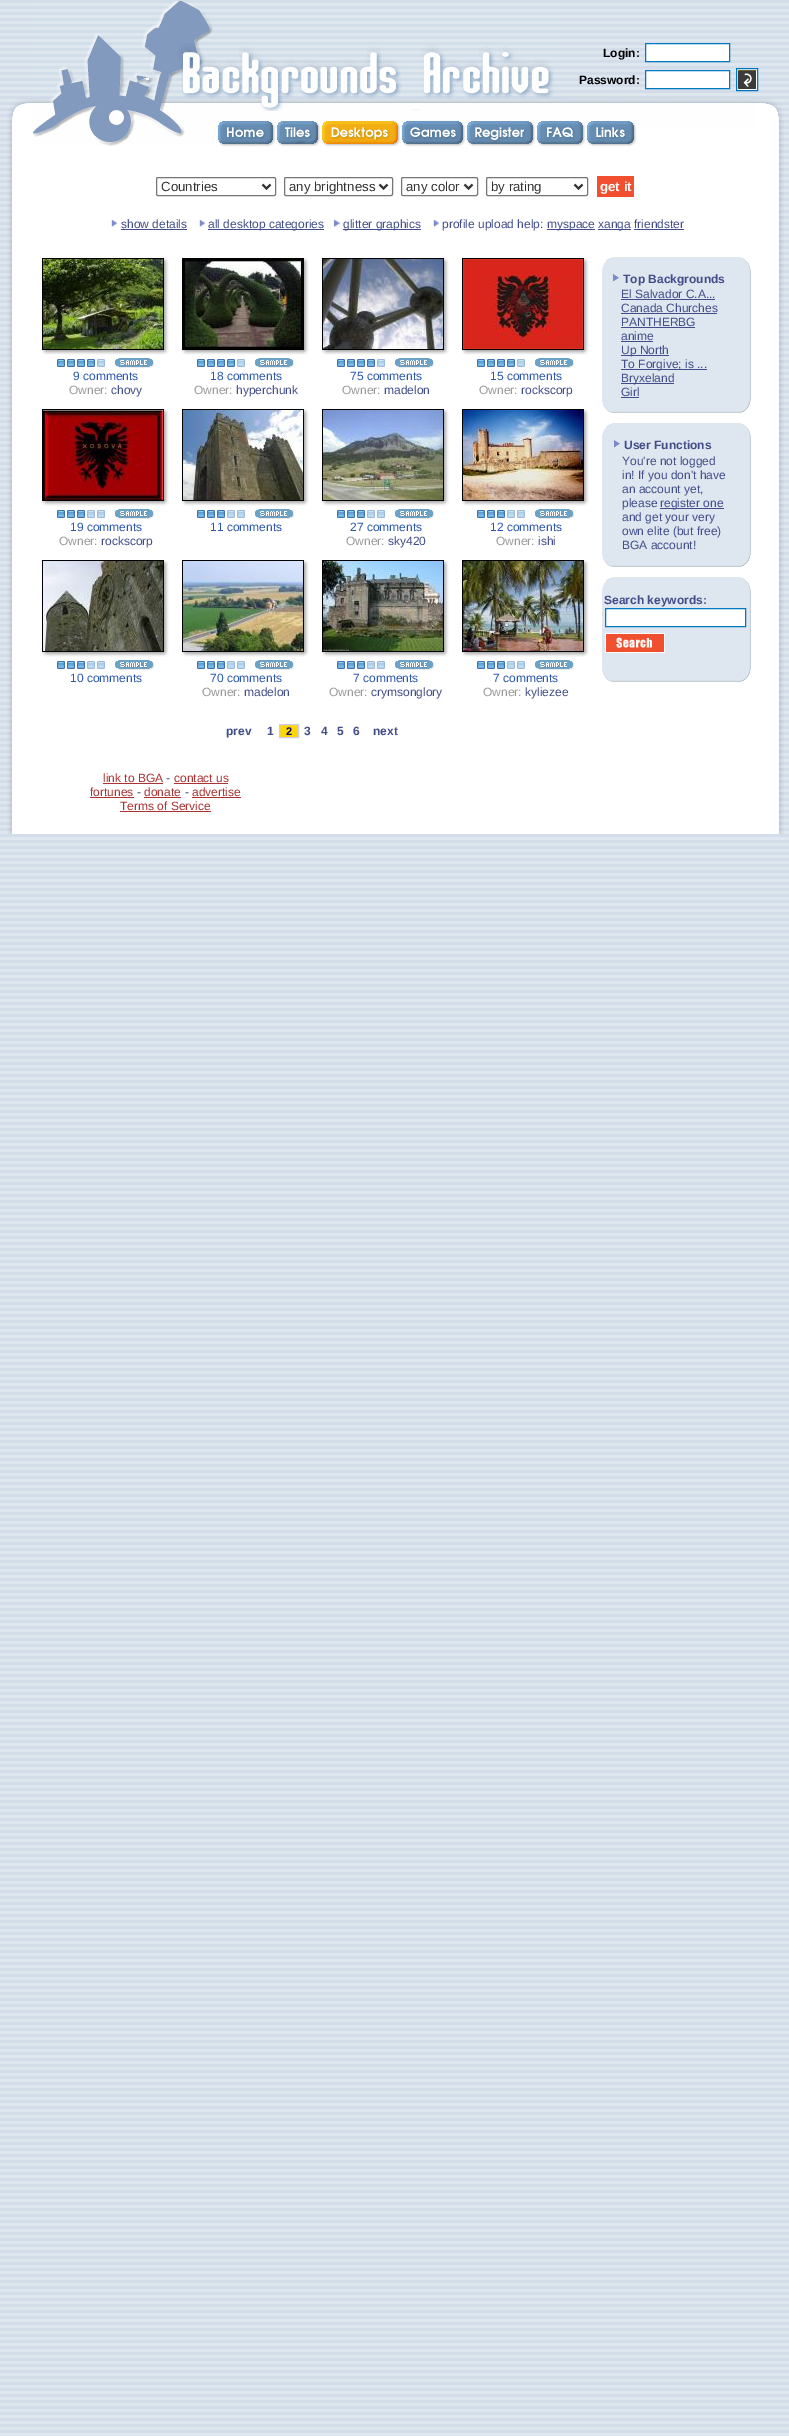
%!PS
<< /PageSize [789 2436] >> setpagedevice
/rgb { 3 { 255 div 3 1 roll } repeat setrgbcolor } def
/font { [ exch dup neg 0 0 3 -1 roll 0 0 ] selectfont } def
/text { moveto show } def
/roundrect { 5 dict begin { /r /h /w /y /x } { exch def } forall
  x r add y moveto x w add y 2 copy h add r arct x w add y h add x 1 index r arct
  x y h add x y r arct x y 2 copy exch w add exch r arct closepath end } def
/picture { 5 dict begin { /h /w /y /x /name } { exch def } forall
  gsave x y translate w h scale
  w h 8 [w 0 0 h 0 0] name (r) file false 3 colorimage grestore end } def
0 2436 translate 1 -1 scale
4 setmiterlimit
255 255 255 rgb
0 0 789 2436 rectfill
(img_01.rgb) 0 0 789 2436 picture
(img_14.rgb) 7 126 28 708 picture
35 126 721 708 rectfill
(img_02.rgb) 33 1 529 145 picture
645.5 43.5 moveto 84 0 rlineto 0 18 rlineto -84 0 rlineto closepath gsave fill grestore
0 120 191 rgb
stroke
255 255 255 rgb
645.5 70.5 moveto 84 0 rlineto 0 18 rlineto -84 0 rlineto closepath gsave fill grestore
0 120 191 rgb
stroke
255 255 255 rgb
736.5 68.5 moveto 21 0 rlineto 0 22 rlineto -21 0 rlineto closepath gsave fill grestore
0 120 191 rgb
stroke
(img_03.rgb) 738 70 18 19 picture
(img_04.rgb) 217 121 59 26 picture
(img_05.rgb) 277 121 43 26 picture
(img_06.rgb) 322 121 78 26 picture
(img_07.rgb) 401 120 65 27 picture
(img_08.rgb) 467 121 68 26 picture
(img_12.rgb) 562 93 194 33 picture
(img_09.rgb) 537 121 49 26 picture
(img_10.rgb) 586 121 51 26 picture
(img_11.rgb) 7 98 26 28 picture
(img_13.rgb) 756 98 28 28 picture
118 118 118 rgb
156.5 177.5 119 18 1.5 roundrect stroke
51 51 51 rgb
2 setlinewidth
262.5 184.5 moveto 4 4 rlineto 4 -4 rlineto stroke
118 118 118 rgb
1 setlinewidth
284.5 177.5 108 18 1.5 roundrect stroke
51 51 51 rgb
2 setlinewidth
379.5 184.5 moveto 4 4 rlineto 4 -4 rlineto stroke
118 118 118 rgb
1 setlinewidth
401.5 177.5 76 18 1.5 roundrect stroke
51 51 51 rgb
2 setlinewidth
464.5 184.5 moveto 4 4 rlineto 4 -4 rlineto stroke
118 118 118 rgb
1 setlinewidth
486.5 177.5 101 18 1.5 roundrect stroke
51 51 51 rgb
2 setlinewidth
574.5 184.5 moveto 4 4 rlineto 4 -4 rlineto stroke
240 80 48 rgb
597 176 37 21 rectfill
(img_15.rgb) 111 219 6 8 picture
66 77 137 rgb
121 229 66 1 rectfill
(img_15.rgb) 199 219 6 8 picture
208 229 116 1 rectfill
(img_16.rgb) 334 219 6 8 picture
343 229 78 1 rectfill
(img_15.rgb) 433 219 6 8 picture
547 229 48 1 rectfill
598 229 33 1 rectfill
634 229 50 1 rectfill
0 0 0 rgb
1 setlinewidth
42.5 258.5 121 91 rectstroke
(img_17.rgb) 43 259 120 90 picture
(img_18.rgb) 164 258 5 8 picture
(img_19.rgb) 164 266 5 84 picture
(img_20.rgb) 42 350 8 5 picture
(img_21.rgb) 50 350 114 5 picture
(img_22.rgb) 164 350 5 5 picture
(img_23.rgb) 57 359 8 8 picture
(img_23.rgb) 67 359 8 8 picture
(img_23.rgb) 77 359 8 8 picture
(img_23.rgb) 87 359 8 8 picture
(img_24.rgb) 97 359 8 8 picture
(img_25.rgb) 115 358 39 10 picture
182.5 258.5 121 91 rectstroke
(img_26.rgb) 183 259 120 90 picture
(img_18.rgb) 304 258 5 8 picture
(img_19.rgb) 304 266 5 84 picture
(img_20.rgb) 182 350 8 5 picture
(img_21.rgb) 190 350 114 5 picture
(img_22.rgb) 304 350 5 5 picture
(img_23.rgb) 197 359 8 8 picture
(img_23.rgb) 207 359 8 8 picture
(img_23.rgb) 217 359 8 8 picture
(img_23.rgb) 227 359 8 8 picture
(img_24.rgb) 237 359 8 8 picture
(img_25.rgb) 255 358 39 10 picture
322.5 258.5 121 91 rectstroke
(img_27.rgb) 323 259 120 90 picture
(img_18.rgb) 444 258 5 8 picture
(img_19.rgb) 444 266 5 84 picture
(img_20.rgb) 322 350 8 5 picture
(img_21.rgb) 330 350 114 5 picture
(img_22.rgb) 444 350 5 5 picture
(img_23.rgb) 337 359 8 8 picture
(img_23.rgb) 347 359 8 8 picture
(img_23.rgb) 357 359 8 8 picture
(img_23.rgb) 367 359 8 8 picture
(img_24.rgb) 377 359 8 8 picture
(img_25.rgb) 395 358 39 10 picture
462.5 258.5 121 91 rectstroke
(img_28.rgb) 463 259 120 90 picture
(img_18.rgb) 584 258 5 8 picture
(img_19.rgb) 584 266 5 84 picture
(img_20.rgb) 462 350 8 5 picture
(img_21.rgb) 470 350 114 5 picture
(img_22.rgb) 584 350 5 5 picture
(img_23.rgb) 477 359 8 8 picture
(img_23.rgb) 487 359 8 8 picture
(img_23.rgb) 497 359 8 8 picture
(img_23.rgb) 507 359 8 8 picture
(img_24.rgb) 517 359 8 8 picture
(img_25.rgb) 535 358 39 10 picture
42.5 409.5 121 91 rectstroke
(img_29.rgb) 43 410 120 90 picture
(img_18.rgb) 164 409 5 8 picture
(img_19.rgb) 164 417 5 84 picture
(img_20.rgb) 42 501 8 5 picture
(img_21.rgb) 50 501 114 5 picture
(img_22.rgb) 164 501 5 5 picture
(img_23.rgb) 57 510 8 8 picture
(img_23.rgb) 67 510 8 8 picture
(img_23.rgb) 77 510 8 8 picture
(img_24.rgb) 87 510 8 8 picture
(img_24.rgb) 97 510 8 8 picture
(img_25.rgb) 115 509 39 10 picture
182.5 409.5 121 91 rectstroke
(img_30.rgb) 183 410 120 90 picture
(img_18.rgb) 304 409 5 8 picture
(img_19.rgb) 304 417 5 84 picture
(img_20.rgb) 182 501 8 5 picture
(img_21.rgb) 190 501 114 5 picture
(img_22.rgb) 304 501 5 5 picture
(img_23.rgb) 197 510 8 8 picture
(img_23.rgb) 207 510 8 8 picture
(img_23.rgb) 217 510 8 8 picture
(img_24.rgb) 227 510 8 8 picture
(img_24.rgb) 237 510 8 8 picture
(img_25.rgb) 255 509 39 10 picture
322.5 409.5 121 91 rectstroke
(img_31.rgb) 323 410 120 90 picture
(img_18.rgb) 444 409 5 8 picture
(img_19.rgb) 444 417 5 84 picture
(img_20.rgb) 322 501 8 5 picture
(img_21.rgb) 330 501 114 5 picture
(img_22.rgb) 444 501 5 5 picture
(img_23.rgb) 337 510 8 8 picture
(img_23.rgb) 347 510 8 8 picture
(img_23.rgb) 357 510 8 8 picture
(img_24.rgb) 367 510 8 8 picture
(img_24.rgb) 377 510 8 8 picture
(img_25.rgb) 395 509 39 10 picture
462.5 409.5 121 91 rectstroke
(img_32.rgb) 463 410 120 90 picture
(img_18.rgb) 584 409 5 8 picture
(img_19.rgb) 584 417 5 84 picture
(img_20.rgb) 462 501 8 5 picture
(img_21.rgb) 470 501 114 5 picture
(img_22.rgb) 584 501 5 5 picture
(img_23.rgb) 477 510 8 8 picture
(img_23.rgb) 487 510 8 8 picture
(img_23.rgb) 497 510 8 8 picture
(img_24.rgb) 507 510 8 8 picture
(img_24.rgb) 517 510 8 8 picture
(img_25.rgb) 535 509 39 10 picture
42.5 560.5 121 91 rectstroke
(img_33.rgb) 43 561 120 90 picture
(img_18.rgb) 164 560 5 8 picture
(img_19.rgb) 164 568 5 84 picture
(img_20.rgb) 42 652 8 5 picture
(img_21.rgb) 50 652 114 5 picture
(img_22.rgb) 164 652 5 5 picture
(img_23.rgb) 57 661 8 8 picture
(img_23.rgb) 67 661 8 8 picture
(img_23.rgb) 77 661 8 8 picture
(img_24.rgb) 87 661 8 8 picture
(img_24.rgb) 97 661 8 8 picture
(img_25.rgb) 115 660 39 10 picture
182.5 560.5 121 91 rectstroke
(img_34.rgb) 183 561 120 90 picture
(img_18.rgb) 304 560 5 8 picture
(img_19.rgb) 304 568 5 84 picture
(img_20.rgb) 182 652 8 5 picture
(img_21.rgb) 190 652 114 5 picture
(img_22.rgb) 304 652 5 5 picture
(img_23.rgb) 197 661 8 8 picture
(img_23.rgb) 207 661 8 8 picture
(img_23.rgb) 217 661 8 8 picture
(img_24.rgb) 227 661 8 8 picture
(img_24.rgb) 237 661 8 8 picture
(img_25.rgb) 255 660 39 10 picture
322.5 560.5 121 91 rectstroke
(img_35.rgb) 323 561 120 90 picture
(img_18.rgb) 444 560 5 8 picture
(img_19.rgb) 444 568 5 84 picture
(img_20.rgb) 322 652 8 5 picture
(img_21.rgb) 330 652 114 5 picture
(img_22.rgb) 444 652 5 5 picture
(img_23.rgb) 337 661 8 8 picture
(img_23.rgb) 347 661 8 8 picture
(img_23.rgb) 357 661 8 8 picture
(img_24.rgb) 367 661 8 8 picture
(img_24.rgb) 377 661 8 8 picture
(img_25.rgb) 395 660 39 10 picture
462.5 560.5 121 91 rectstroke
(img_36.rgb) 463 561 120 90 picture
(img_18.rgb) 584 560 5 8 picture
(img_19.rgb) 584 568 5 84 picture
(img_20.rgb) 462 652 8 5 picture
(img_21.rgb) 470 652 114 5 picture
(img_22.rgb) 584 652 5 5 picture
(img_23.rgb) 477 661 8 8 picture
(img_23.rgb) 487 661 8 8 picture
(img_23.rgb) 497 661 8 8 picture
(img_24.rgb) 507 661 8 8 picture
(img_24.rgb) 517 661 8 8 picture
(img_25.rgb) 535 660 39 10 picture
255 215 0 rgb
279.5 724.5 moveto 19 0 rlineto 0 13 rlineto -19 0 rlineto closepath gsave fill grestore
204 204 238 rgb
stroke
(img_37.rgb) 602 258 10 13 picture
222 230 239 rgb
612 257 129 14 rectfill
(img_38.rgb) 741 258 10 13 picture
602 271 147 128 rectfill
(img_39.rgb) 613 274 6 8 picture
66 77 137 rgb
621 299 94 1 rectfill
621 313 96 1 rectfill
621 327 74 1 rectfill
621 341 32 1 rectfill
621 355 48 1 rectfill
621 369 86 1 rectfill
621 383 53 1 rectfill
621 397 18 1 rectfill
(img_40.rgb) 749 271 2 128 picture
(img_41.rgb) 602 399 10 14 picture
(img_42.rgb) 612 399 129 14 picture
(img_43.rgb) 741 399 10 14 picture
(img_37.rgb) 602 424 10 13 picture
222 230 239 rgb
612 423 129 14 rectfill
(img_38.rgb) 741 424 10 13 picture
602 437 147 116 rectfill
(img_39.rgb) 614 440 6 8 picture
66 77 137 rgb
660 508 64 1 rectfill
(img_44.rgb) 749 437 2 116 picture
(img_41.rgb) 602 553 10 14 picture
(img_42.rgb) 612 553 129 14 picture
(img_43.rgb) 741 553 10 14 picture
(img_37.rgb) 602 578 10 13 picture
222 230 239 rgb
612 577 129 14 rectfill
(img_38.rgb) 741 578 10 13 picture
602 591 147 77 rectfill
255 255 255 rgb
605.5 608.5 moveto 140 0 rlineto 0 18 rlineto -140 0 rlineto closepath gsave fill grestore
0 120 191 rgb
stroke
255 255 255 rgb
605 633 60 20 rectfill
(img_45.rgb) 606 634 58 18 picture
(img_46.rgb) 749 591 2 77 picture
(img_41.rgb) 602 668 10 14 picture
(img_42.rgb) 612 668 129 14 picture
(img_43.rgb) 741 668 10 14 picture
170 51 51 rgb
103 783 60 1 rectfill
174 783 54 1 rectfill
90 797 44 1 rectfill
144 797 37 1 rectfill
192 797 49 1 rectfill
120 811 91 1 rectfill
(img_47.rgb) 756 126 28 708 picture
/LiberationSans-Bold 12 font
0 0 0 rgb
(Login:) 603 57 text
(Password:) 579 84 text
/LiberationSans-Regular 13.25 font
51 51 51 rgb
(Countries) 161 191 text
(any brightness) 289 191 text
(any color) 406 191 text
(by rating) 491 191 text
/LiberationSans-Bold 13.25 font
255 255 255 rgb
(get it) 600 191 text
/LiberationSans-Regular 12 font
66 77 137 rgb
(show details) 121 228 text
(all desktop categories) 208 228 text
(glitter graphics) 343 228 text
(profile upload help:) 442 228 text
(myspace) 547 228 text
(xanga friendster) 598 228 text
43 87 175 rgb
(9 comments) 73 380 text
153 153 153 rgb
(Owner:) 69 394 text
66 77 137 rgb
(chovy) 111 394 text
43 87 175 rgb
(18 comments) 210 380 text
153 153 153 rgb
(Owner:) 194 394 text
66 77 137 rgb
(hyperchunk) 236 394 text
43 87 175 rgb
(75 comments) 350 380 text
153 153 153 rgb
(Owner:) 342 394 text
66 77 137 rgb
(madelon) 384 394 text
43 87 175 rgb
(15 comments) 490 380 text
153 153 153 rgb
(Owner:) 479 394 text
66 77 137 rgb
(rockscorp) 521 394 text
43 87 175 rgb
(19 comments) 70 531 text
153 153 153 rgb
(Owner:) 59 545 text
66 77 137 rgb
(rockscorp) 101 545 text
43 87 175 rgb
(11 comments) 210 531 text
(27 comments) 350 531 text
153 153 153 rgb
(Owner:) 346 545 text
66 77 137 rgb
(sky420) 388 545 text
43 87 175 rgb
(12 comments) 490 531 text
153 153 153 rgb
(Owner:) 496 545 text
66 77 137 rgb
(ishi) 538 545 text
43 87 175 rgb
(10 comments) 70 682 text
(70 comments) 210 682 text
153 153 153 rgb
(Owner:) 202 696 text
66 77 137 rgb
(madelon) 244 696 text
43 87 175 rgb
(7 comments) 353 682 text
153 153 153 rgb
(Owner:) 329 696 text
66 77 137 rgb
(crymsonglory) 371 696 text
43 87 175 rgb
(7 comments) 493 682 text
153 153 153 rgb
(Owner:) 483 696 text
66 77 137 rgb
(kyliezee) 525 696 text
/LiberationSans-Bold 12 font
(prev) 226 735 text
(1) 267 735 text
/LiberationSans-Bold 11 font
0 0 128 rgb
(2) 286 735 text
/LiberationSans-Bold 12 font
66 77 137 rgb
(3) 304 735 text
(4) 321 735 text
(5) 337 735 text
(6) 353 735 text
(next) 373 735 text
(Top Backgrounds) 623 283 text
/LiberationSans-Regular 12 font
(El Salvador C.A...) 621 298 text
(Canada Churches) 621 312 text
(PANTHERBG) 621 326 text
(anime) 621 340 text
(Up North) 621 354 text
(To Forgive; is ...) 621 368 text
(Bryxeland) 621 382 text
(Girl) 621 396 text
/LiberationSans-Bold 12 font
(User Functions) 624 449 text
/LiberationSans-Regular 12 font
(You're not logged) 622 465 text
(in! If you don't have) 622 479 text
(an account yet,) 622 493 text
(please) 622 507 text
(register one) 660 507 text
(and get your very) 622 521 text
(own elite \(but free\)) 622 535 text
(BGA account!) 622 549 text
/LiberationSans-Bold 12 font
(Search keywords:) 604 604 text
/LiberationSans-Regular 12 font
170 51 51 rgb
(link to BGA) 103 782 text
66 77 137 rgb
(-) 166 782 text
170 51 51 rgb
(contact us) 174 782 text
(fortunes) 90 796 text
66 77 137 rgb
(-) 137 796 text
170 51 51 rgb
(donate) 144 796 text
66 77 137 rgb
(-) 185 796 text
170 51 51 rgb
(advertise) 192 796 text
(Terms of Service) 120 810 text
showpage
